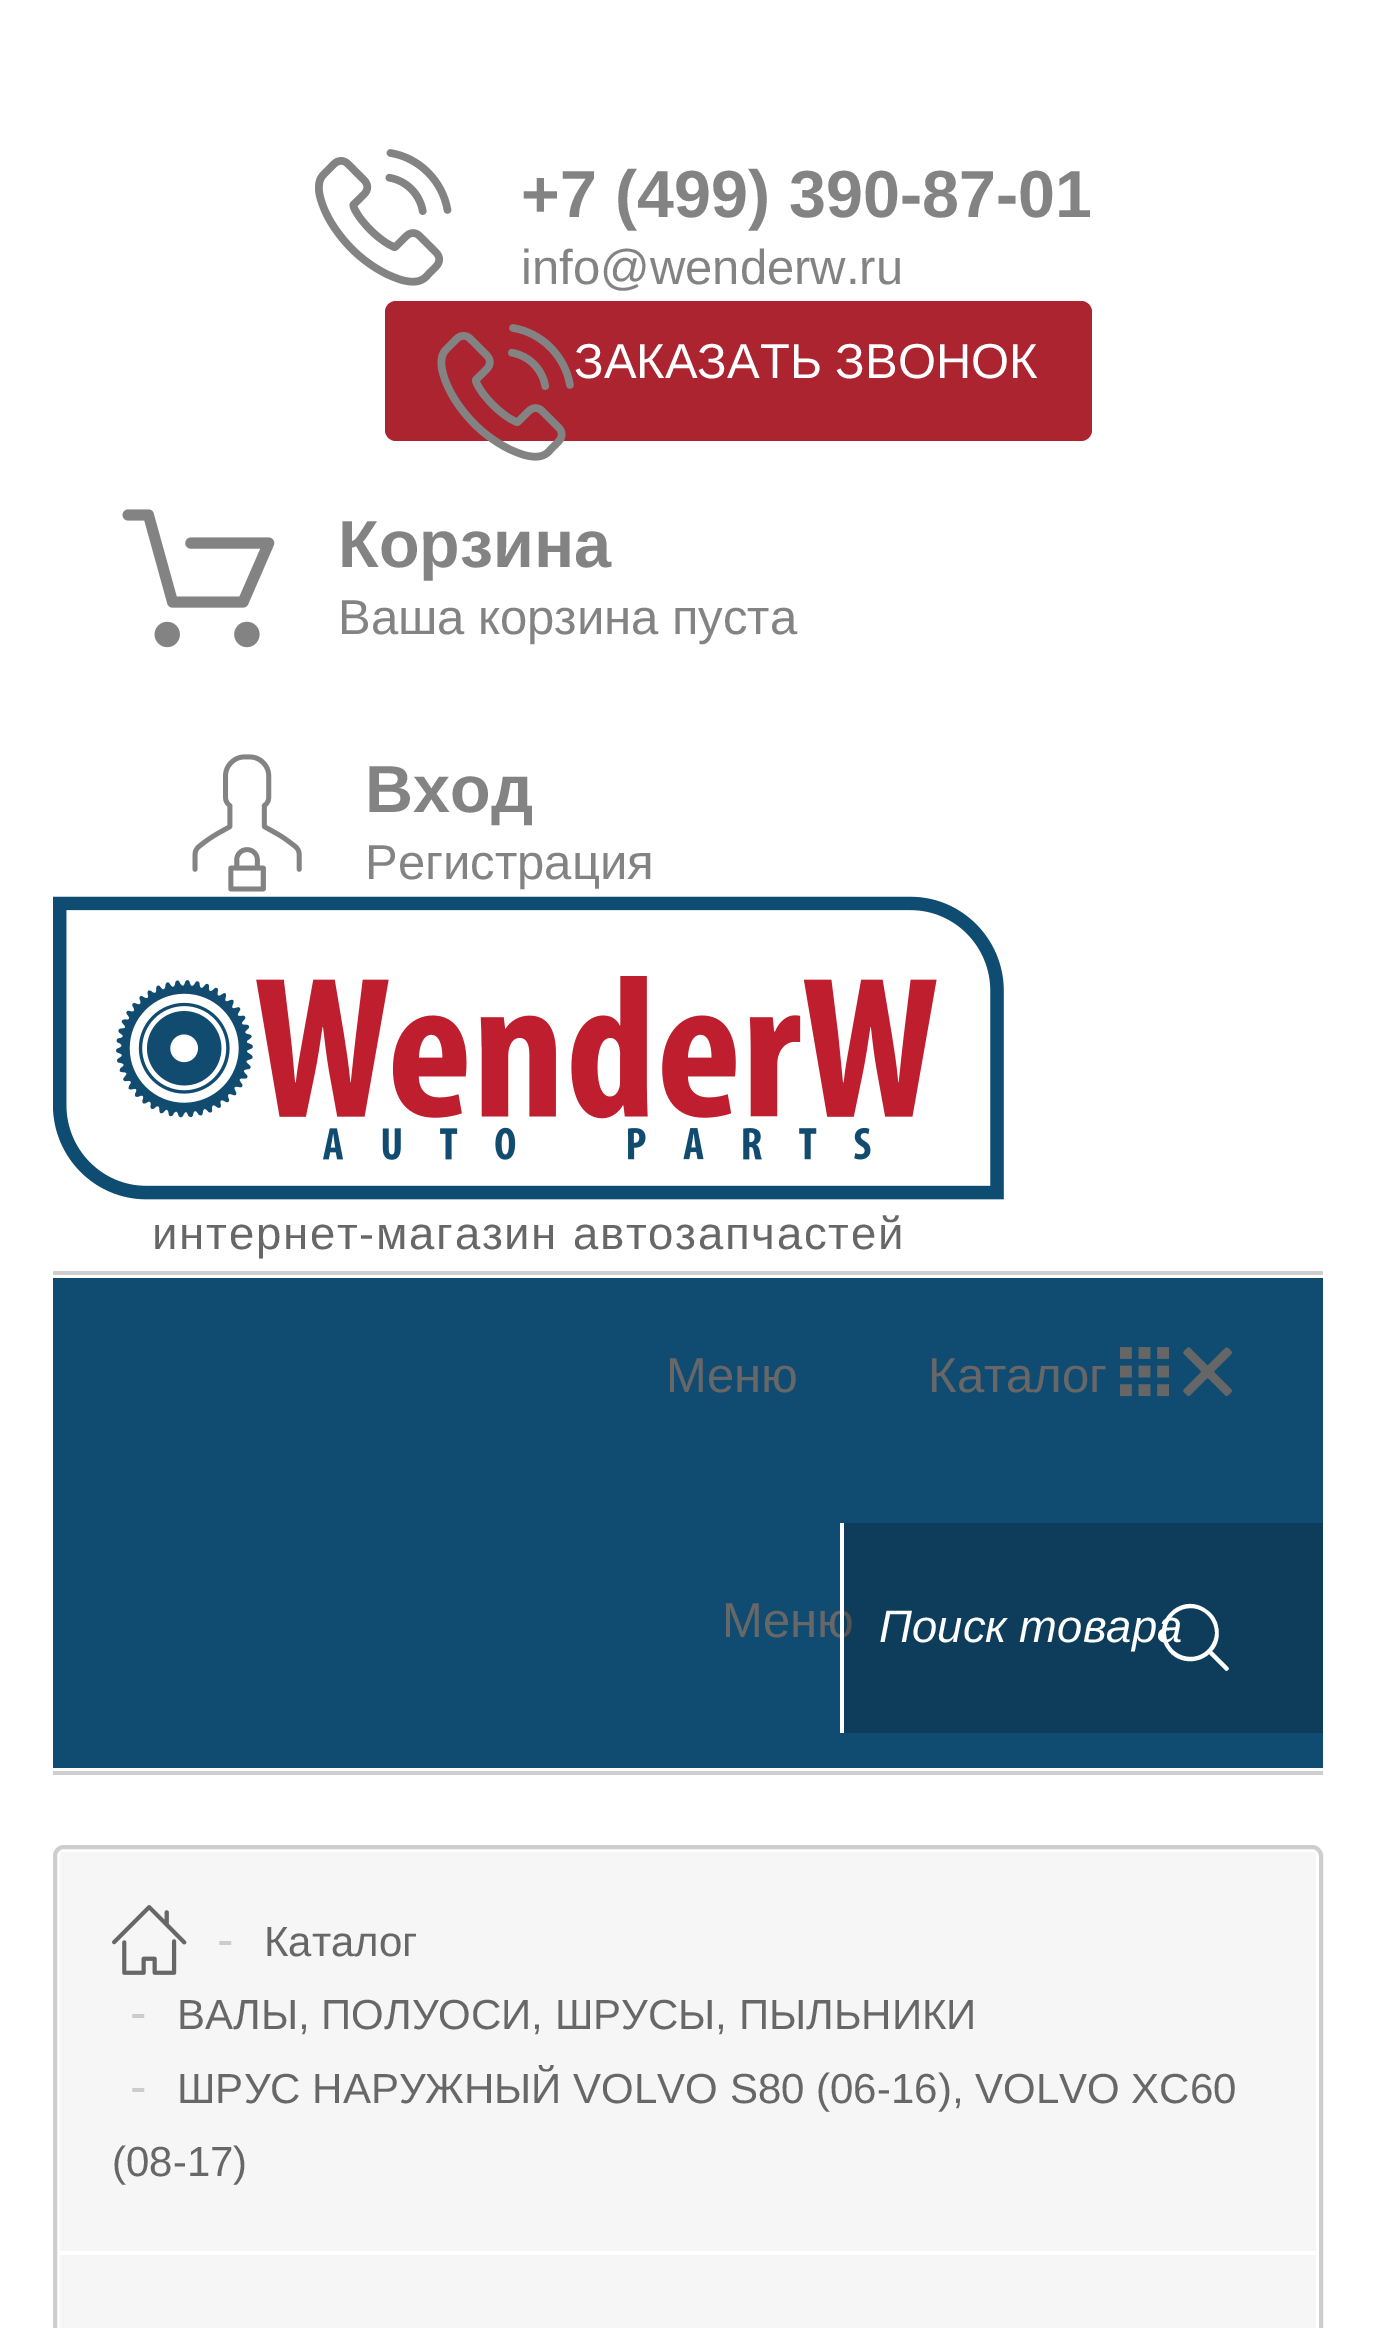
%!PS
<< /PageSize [1373 2328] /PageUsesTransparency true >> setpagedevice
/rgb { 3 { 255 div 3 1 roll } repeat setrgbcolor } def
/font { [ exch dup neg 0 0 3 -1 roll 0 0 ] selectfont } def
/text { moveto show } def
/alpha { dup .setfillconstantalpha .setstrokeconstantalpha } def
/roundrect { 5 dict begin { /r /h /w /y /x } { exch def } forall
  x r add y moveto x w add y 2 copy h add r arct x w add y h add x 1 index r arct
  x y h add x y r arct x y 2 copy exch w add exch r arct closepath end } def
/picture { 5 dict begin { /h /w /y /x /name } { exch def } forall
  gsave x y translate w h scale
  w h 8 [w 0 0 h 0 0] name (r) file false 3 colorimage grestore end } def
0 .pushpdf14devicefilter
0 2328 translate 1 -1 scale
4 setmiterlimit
255 255 255 rgb
0 0 1373 2328 rectfill
(img_01.rgb) 315 149 137 137 picture
171 36 48 rgb
385 301 707 140 11 roundrect fill
(img_02.rgb) 437 324 137 137 picture
(img_03.rgb) 122 509 153 139 picture
(img_04.rgb) 192 754 110 138 picture
(img_05.rgb) 53 896 951 304 picture
206 206 206 rgb
53 1271 1270 4 rectfill
53 1771 1270 4 rectfill
16 76 113 rgb
53 1278 1270 490 rectfill
(img_06.rgb) 1120 1347 49 50 picture
(img_07.rgb) 1183 1347 49 49 picture
206 206 206 rgb
4 setlinewidth
55 1847 1266 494 9 roundrect stroke
246 246 246 rgb
60 1852 1256 476 rectfill
255 255 255 rgb
60 2251 1256 4 rectfill
(img_08.rgb) 112 1905 75 70 picture
/LiberationSans-Bold 66.5 font
131 131 131 rgb
(+7 \(499\) 390-87-01) 521 217 text
/LiberationSans-Regular 49 font
(info@wenderw.ru) 521 284 text
255 255 255 rgb
(ЗАКАЗАТЬ ЗВОНОК) 574 378 text
/LiberationSans-Bold 66.5 font
131 131 131 rgb
(Корзина) 338 567 text
/LiberationSans-Regular 49 font
(Ваша корзина пуста) 338 634 text
/LiberationSans-Bold 66.5 font
(Вход) 365 812 text
/LiberationSans-Regular 49 font
(Регистрация) 365 879 text
/LiberationSans-Regular 45.5 font
104 103 103 rgb
152 1249 moveto 1.75 0 (интернет-магазин автозапчастей) ashow
/LiberationSans-Regular 49 font
(Меню) 666 1392 text
(Каталог) 928 1392 text
(Меню) 722 1637 text
0.2 alpha
0 0 0 rgb
844 1523 479 210 rectfill
1 alpha
255 255 255 rgb
840 1523 4 210 rectfill
/LiberationSans-Italic 45.5 font
(Поиск товара) 879 1642 text
1228 1667 moveto -16 -16 rlineto 6 -6 8 -16 6 -24 rcurveto -1 -7 -5 -13 -11 -17 rcurveto -26 -20 -59 14 -39 40 rcurveto 9 13 29 15 41 4 rcurveto 17 17 rlineto 1 0 2 -1 3 -2 rcurveto closepath 1166 1633 moveto 0 -24 30 -34 44 -15 rcurveto 3 4 5 9 5 15 rcurveto 0 5 -2 10 -5 14 rcurveto -14 19 -44 9 -44 -14 rcurveto closepath fill
/LiberationSans-Regular 49 font
204 204 204 rgb
(-) 217 1956 text
/LiberationSans-Regular 42 font
104 103 103 rgb
(Каталог) 264 1956 text
/LiberationSans-Regular 49 font
204 204 204 rgb
(-) 130 2029 text
/LiberationSans-Regular 42 font
104 103 103 rgb
(ВАЛЫ, ПОЛУОСИ, ШРУСЫ, ПЫЛЬНИКИ) 177 2029 text
/LiberationSans-Regular 49 font
204 204 204 rgb
(-) 130 2103 text
/LiberationSans-Regular 42 font
104 103 103 rgb
(ШРУС НАРУЖНЫЙ VOLVO S80 \(06-16\), VOLVO XC60) 177 2103 text
(\(08-17\)) 112 2176 text
.poppdf14devicefilter showpage
